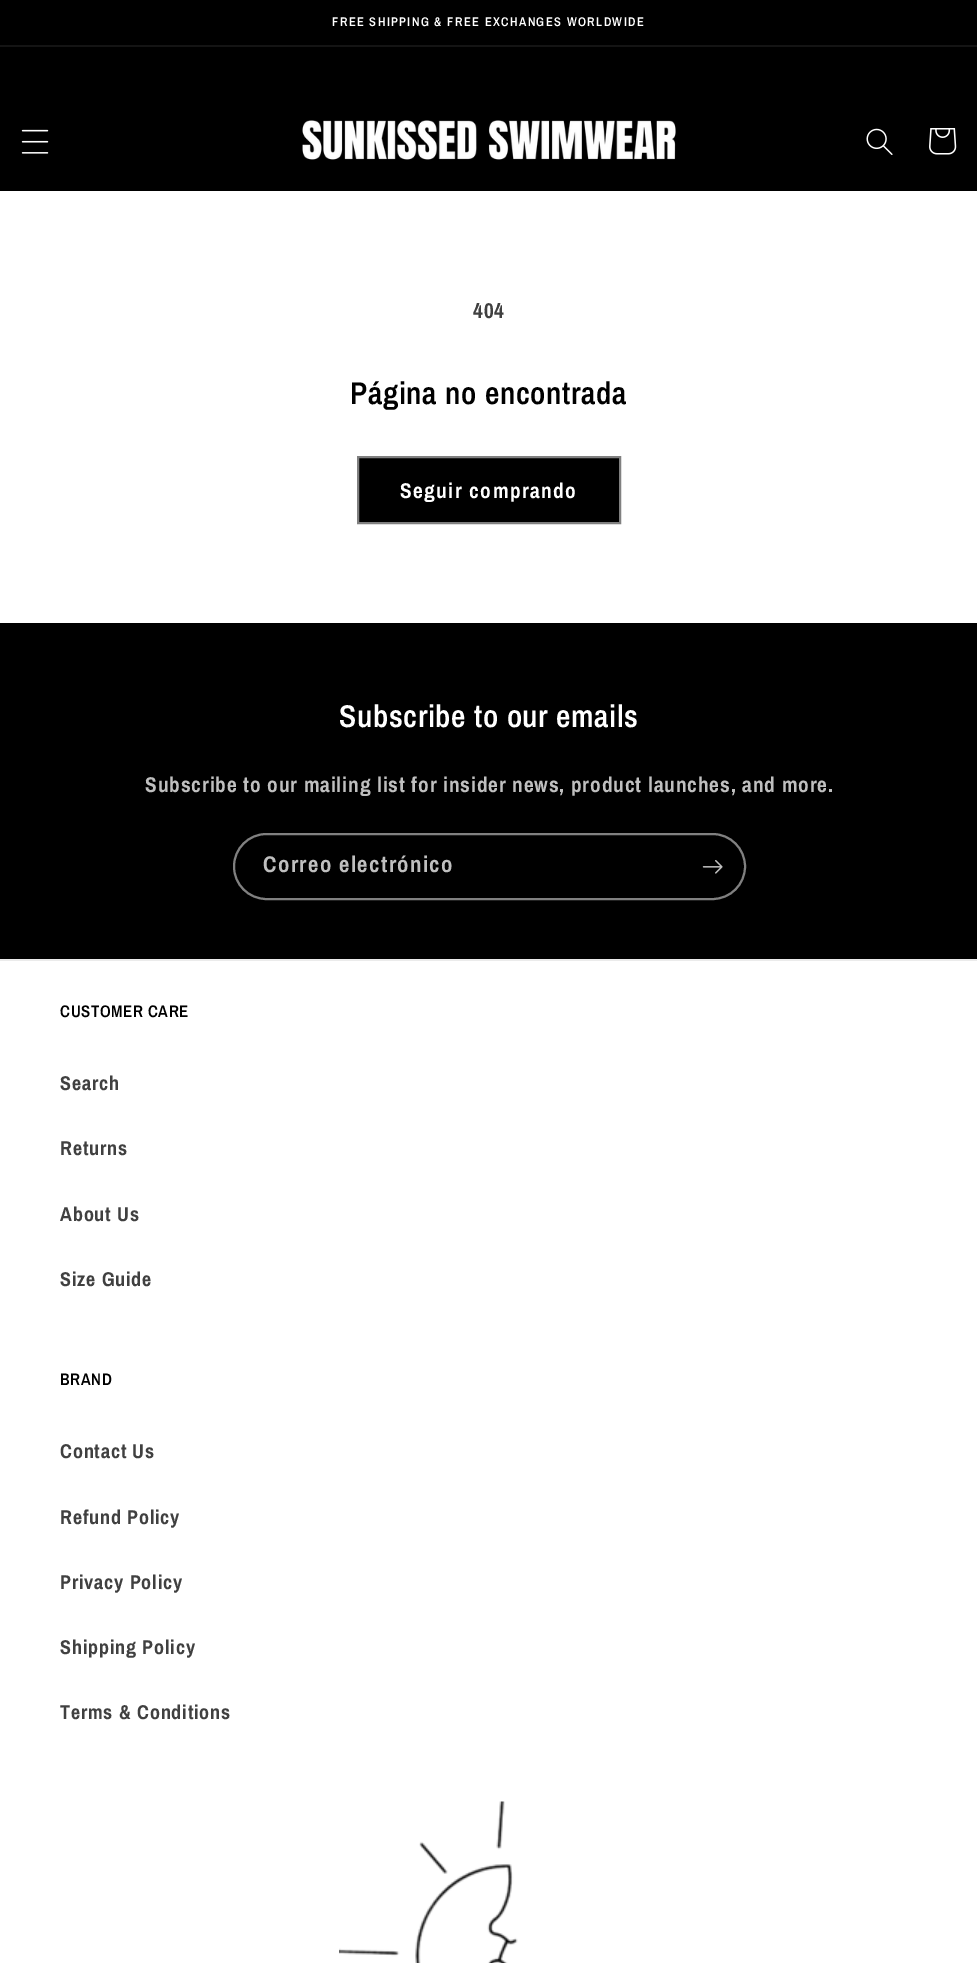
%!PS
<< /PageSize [977 1963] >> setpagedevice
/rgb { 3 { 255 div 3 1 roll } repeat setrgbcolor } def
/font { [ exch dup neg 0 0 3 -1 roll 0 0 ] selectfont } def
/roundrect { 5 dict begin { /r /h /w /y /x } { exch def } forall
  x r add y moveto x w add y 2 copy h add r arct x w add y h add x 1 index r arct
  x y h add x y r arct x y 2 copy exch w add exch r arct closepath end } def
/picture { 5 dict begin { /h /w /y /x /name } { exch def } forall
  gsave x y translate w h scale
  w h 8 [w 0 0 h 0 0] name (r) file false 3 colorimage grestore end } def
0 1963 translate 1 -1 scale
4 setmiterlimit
255 255 255 rgb
0 0 977 1963 rectfill
0 0 0 rgb
0 0 977 45 rectfill
20 20 20 rgb
0 45 977 2 rectfill
0 0 0 rgb
0 47 977 144 rectfill
(img_01.rgb) 21 129 28 25 picture
(img_02.rgb) 302 120 374 40 picture
(img_03.rgb) 866 128 27 27 picture
(img_04.rgb) 929 128 28 27 picture
359 458 260 64 rectfill
128 128 128 rgb
2 setlinewidth
358 457 262 66 rectstroke
0 0 0 rgb
0 623 977 336 rectfill
128 128 128 rgb
234 834 511 65 32.5 roundrect stroke
(img_05.rgb) 702 860 21 14 picture
235 235 235 rgb
0 959 977 2 rectfill
(img_06.rgb) 339 1801 179 162 picture
/ArchivoNarrow-SemiBold 12.6 font
255 255 255 rgb
332 26 moveto 1.4 0 (FREE SHIPPING & FREE EXCHANGES WORLDWIDE) ashow
/ArchivoNarrow-Bold 21.4 font
64 64 64 rgb
473 318 moveto 0.85 0 (404) ashow
/ArchivoNarrow-SemiBold 31.5 font
0 0 0 rgb
350 404 moveto 0.6 0 (Página no encontrada) ashow
/ArchivoNarrow-Bold 21.4 font
255 255 255 rgb
400 498 moveto 1.4 0 (Seguir comprando) ashow
/ArchivoNarrow-SemiBold 31.5 font
339 727 moveto 0.6 0 (Subscribe to our emails) ashow
/ArchivoNarrow-Bold 21.4 font
191 191 191 rgb
145 792 moveto 0.85 0 (Subscribe to our mailing list for insider news, product launches, and more.) ashow
/ArchivoNarrow-Bold 22.75 font
263 872 moveto 1.4 0 (Correo electrónico) ashow
/ArchivoNarrow-SemiBold 16.75 font
0 0 0 rgb
60 1017 moveto 0.6 0 (CUSTOMER CARE) ashow
/ArchivoNarrow-Bold 20 font
64 64 64 rgb
60 1090 moveto 0.85 0 (Search) ashow
60 1155 moveto 0.85 0 (Returns) ashow
60 1221 moveto 0.85 0 (About Us) ashow
60 1286 moveto 0.85 0 (Size Guide) ashow
/ArchivoNarrow-SemiBold 16.75 font
0 0 0 rgb
60 1385 moveto 0.6 0 (BRAND) ashow
/ArchivoNarrow-Bold 20 font
64 64 64 rgb
60 1458 moveto 0.85 0 (Contact Us) ashow
60 1524 moveto 0.85 0 (Refund Policy) ashow
60 1589 moveto 0.85 0 (Privacy Policy) ashow
60 1654 moveto 0.85 0 (Shipping Policy) ashow
60 1719 moveto 0.85 0 (Terms & Conditions) ashow
showpage
